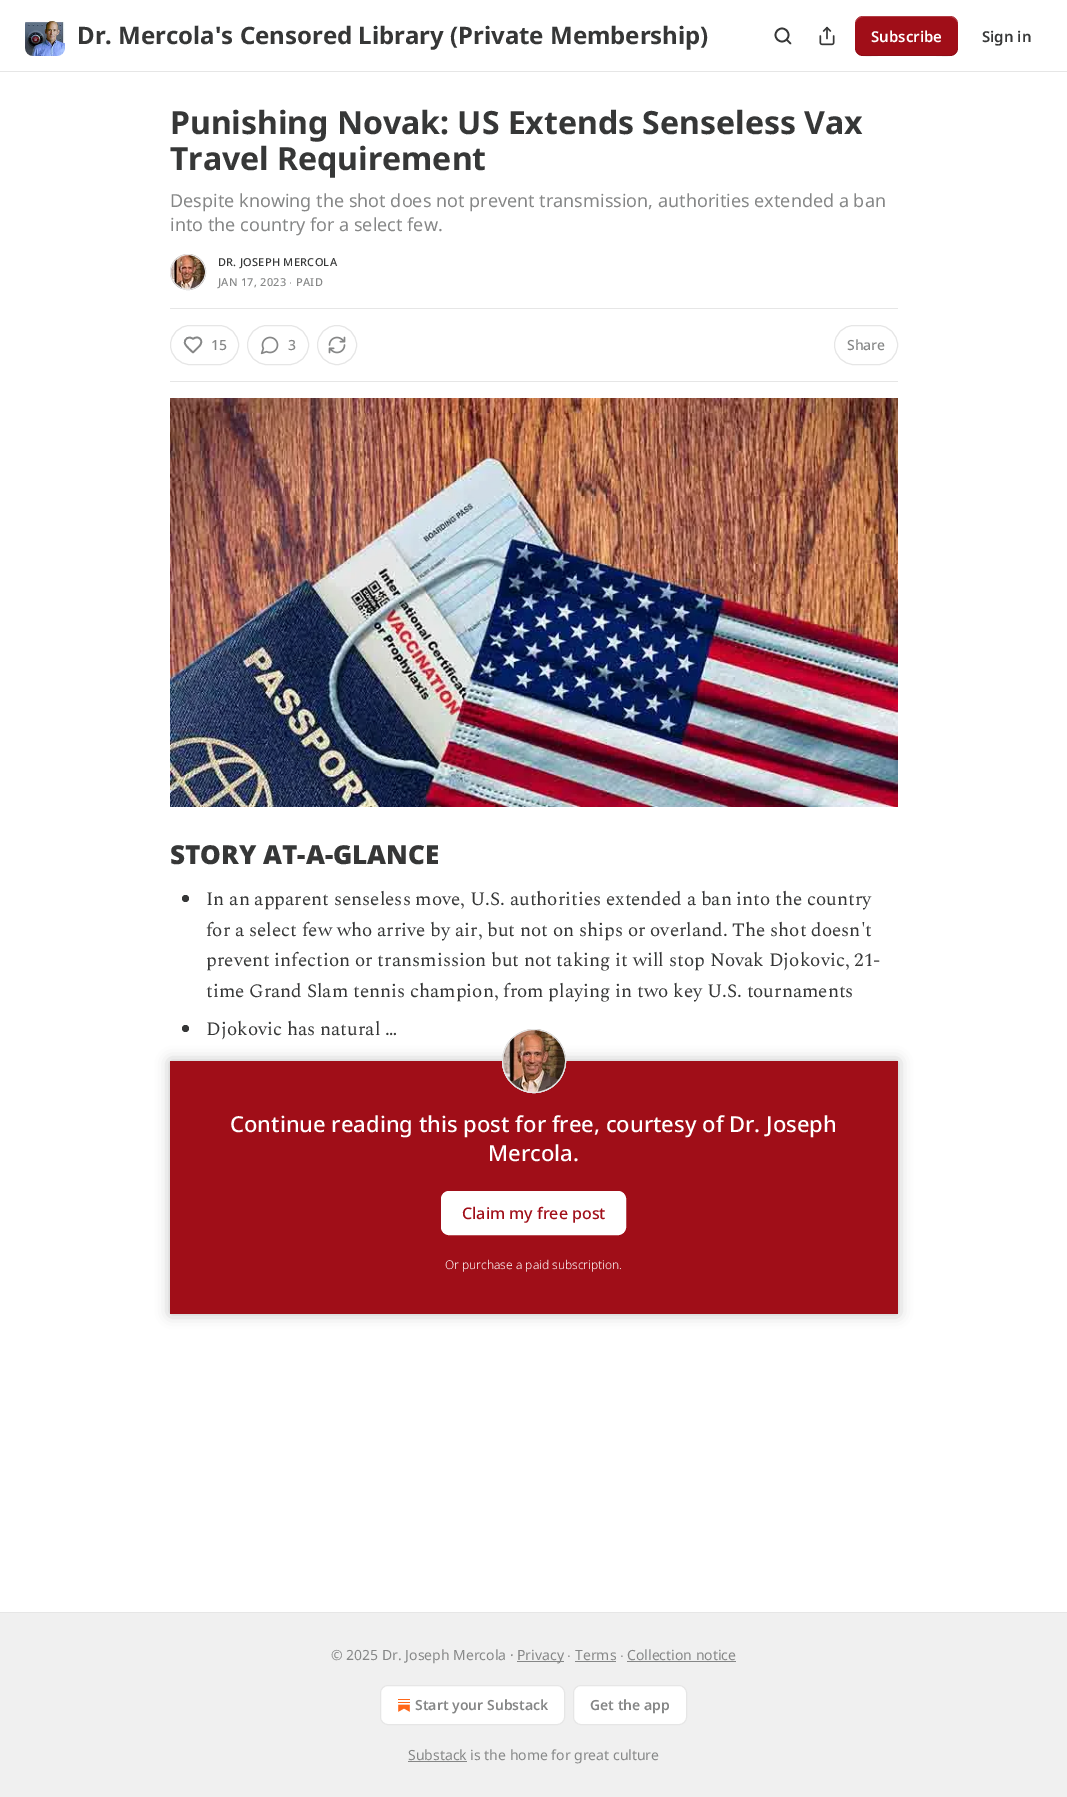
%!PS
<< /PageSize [1067 1797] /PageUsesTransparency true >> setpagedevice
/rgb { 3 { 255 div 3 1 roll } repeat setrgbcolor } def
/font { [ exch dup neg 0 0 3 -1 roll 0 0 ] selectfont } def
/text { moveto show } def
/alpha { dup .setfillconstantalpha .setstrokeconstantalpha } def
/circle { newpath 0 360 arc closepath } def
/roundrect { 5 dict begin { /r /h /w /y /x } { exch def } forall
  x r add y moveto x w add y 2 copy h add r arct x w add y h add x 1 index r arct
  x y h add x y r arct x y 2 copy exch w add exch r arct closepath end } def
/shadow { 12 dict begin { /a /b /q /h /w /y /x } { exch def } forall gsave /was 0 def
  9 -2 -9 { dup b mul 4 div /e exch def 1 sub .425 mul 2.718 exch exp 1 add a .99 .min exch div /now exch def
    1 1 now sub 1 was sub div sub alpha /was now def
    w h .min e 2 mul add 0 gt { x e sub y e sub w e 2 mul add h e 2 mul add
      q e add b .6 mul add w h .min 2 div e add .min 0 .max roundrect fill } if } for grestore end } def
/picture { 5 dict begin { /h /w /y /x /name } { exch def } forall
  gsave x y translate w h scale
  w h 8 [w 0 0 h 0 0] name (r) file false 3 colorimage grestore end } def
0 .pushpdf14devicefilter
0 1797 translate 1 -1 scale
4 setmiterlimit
255 255 255 rgb
0 0 1067 1797 rectfill
230 230 230 rgb
0 71 1067 1 rectfill
(img_01.rgb) 25 20 40 36 picture
54 55 55 rgb
1.7 setlinewidth
782 35 6.5 circle stroke
1 setlinecap
1 setlinejoin
790.5 43.5 moveto -3.5 -3.5 rlineto stroke
(img_02.rgb) 819 26 16 20 picture
160 14 24 rgb
855 16 103 40 8 roundrect fill
0.1 alpha
0 0 0 rgb
855 47 moveto 0 12 14 9 23 9 rcurveto 58 0 rlineto 8 0 22 3 22 -9 rcurveto 0 4 -4 8 -8 8 rcurveto -87 0 rlineto -4 0 -8 -4 -8 -8 rcurveto closepath fill
0.2 alpha
255 255 255 rgb
863 17 moveto 87 0 rlineto 4 0 8 4 8 8 rcurveto 0 -12 -14 -9 -22 -9 rcurveto -58 0 rlineto -9 0 -23 -3 -23 9 rcurveto 0 -4 4 -8 8 -8 rcurveto closepath fill
1 alpha
230 230 230 rgb
1 setlinewidth
0 setlinecap
0 setlinejoin
188 272 17.5 circle stroke
(img_03.rgb) 170 254 36 36 picture
188 272 17.5 circle stroke
170 308 728 1 rectfill
170 381 728 1 rectfill
170.5 325.5 68 39 19.5 roundrect stroke
134 135 135 rgb
1.7 setlinewidth
1 setlinecap
1 setlinejoin
199 346.5 moveto 6 -6 -1 -12 -6 -7.5 rcurveto -3.5 -3.5 -9.5 -0.5 -8 4.5 rcurveto 1 3 6 7 8 9 rcurveto closepath stroke
230 230 230 rgb
1 setlinewidth
0 setlinecap
0 setlinejoin
247.5 325.5 61 39 19.5 roundrect stroke
(img_04.rgb) 260 336 19 19 picture
337 345 19.5 circle stroke
(img_05.rgb) 328 336 18 18 picture
834.5 325.5 63 39 19.5 roundrect stroke
(img_06.rgb) 170 398 728 409 picture
54 55 55 rgb
185.5 898.5 3.5 circle fill
185.5 1028.5 3.5 circle fill
160 14 24 rgb
170 1061 728 253 rectfill
255 255 255 rgb
441.5 1191.5 184 43 7.5 roundrect gsave fill grestore
stroke
gsave
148 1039 moveto 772 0 rlineto 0 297 rlineto -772 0 rlineto closepath 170 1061 moveto 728 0 rlineto 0 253 rlineto -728 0 rlineto closepath eoclip newpath
0 0 0 rgb
170 1061 728 253 0 7 0.25 shadow
grestore
230 230 230 rgb
534 1061 31.5 circle stroke
(img_07.rgb) 502 1029 64 64 picture
534 1061 31.5 circle stroke
240 240 240 rgb
0 1613 1067 184 rectfill
230 230 230 rgb
0 1612 1067 1 rectfill
134 135 135 rgb
517 1661 47 1 rectfill
575 1661 41 1 rectfill
627 1661 109 1 rectfill
255 255 255 rgb
380.5 1685.5 184 39 7.5 roundrect gsave fill grestore
230 230 230 rgb
stroke
(img_08.rgb) 398 1699 12 13 picture
255 255 255 rgb
573.5 1685.5 113 39 7.5 roundrect gsave fill grestore
230 230 230 rgb
stroke
134 135 135 rgb
408 1761 59 1 rectfill
/NotoSans-Bold 24 font
54 55 55 rgb
(Dr. Mercola's Censored Library \(Private Membership\)) 77 44 text
/NotoSans-SemiBold 15 font
255 255 255 rgb
(Subscribe) 871 42 text
54 55 55 rgb
(Sign in) 982 42 text
/NotoSans-Bold 32 font
(Punishing Novak: US Extends Senseless Vax) 170 134 text
(Travel Requirement) 170 170 text
/NotoSans-Regular 18 font
134 135 135 rgb
(Despite knowing the shot does not prevent transmission, authorities extended a ban) 170 207 text
(into the country for a select few.) 170 231 text
/NotoSans-Medium 11 font
54 55 55 rgb
218 266 moveto 0.25 0 (DR. JOSEPH MERCOLA) ashow
134 135 135 rgb
218 286 moveto 0.25 0 (JAN 17, 2023) ashow
/LiberationSans-Regular 11 font
289 286 moveto 0.25 0 (∙) ashow
/NotoSans-Medium 11 font
296 286 moveto 0.25 0 (PAID) ashow
/NotoSans-Medium 14 font
(15) 211 350 text
(3) 288 350 text
(Share) 847 350 text
/NotoSans-Black 26.1 font
54 55 55 rgb
(STORY AT-A-GLANCE) 170 864 text
/Spectral-Regular 19 font
(In an apparent senseless move, U.S. authorities extended a ban into the country) 206 905 text
(for a select few who arrive by air, but not on ships or overland. The shot doesn't) 206 936 text
(prevent infection or transmission but not taking it will stop Novak Djokovic, 21-) 206 966 text
(time Grand Slam tennis champion, from playing in two key U.S. tournaments) 206 997 text
(Djokovic has natural …) 206 1035 text
/NotoSans-Medium 22 font
255 255 255 rgb
(Continue reading this post for free, courtesy of Dr. Joseph) 230 1132 text
(Mercola.) 488 1161 text
/NotoSans-Medium 16 font
160 14 24 rgb
(Claim my free post) 462 1219 text
/NotoSans-Light 12 font
255 255 255 rgb
(Or purchase a paid subscription.) 445 1269 text
/NotoSans-Regular 14 font
134 135 135 rgb
(© 2025 Dr. Joseph Mercola ·) 331 1660 text
(Privacy) 517 1660 text
/LiberationSans-Regular 14 font
(∙) 567 1660 text
/NotoSans-Regular 14 font
(Terms) 575 1660 text
/LiberationSans-Regular 14 font
(∙) 620 1660 text
/NotoSans-Regular 14 font
(Collection notice) 627 1660 text
/NotoSans-SemiBold 14 font
(Start your Substack) 415 1710 text
(Get the app) 590 1710 text
/NotoSans-Regular 14 font
(Substack is the home for great culture) 408 1760 text
.poppdf14devicefilter showpage
